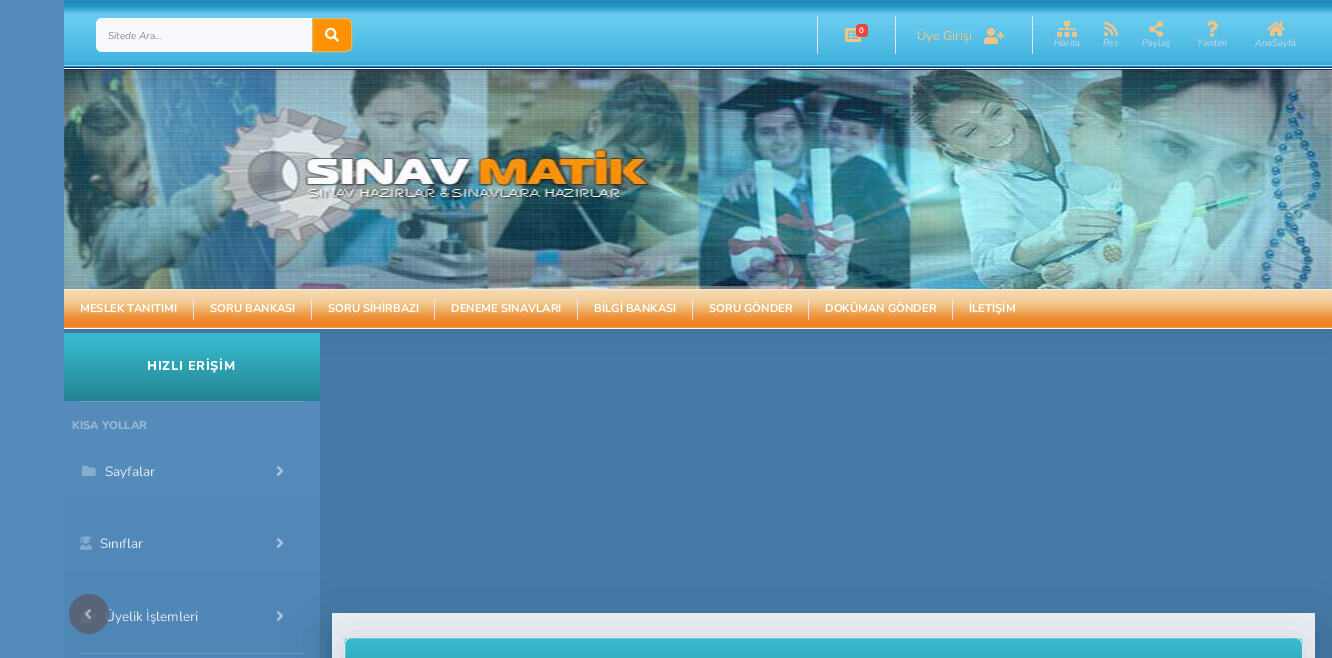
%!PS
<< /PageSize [1332 658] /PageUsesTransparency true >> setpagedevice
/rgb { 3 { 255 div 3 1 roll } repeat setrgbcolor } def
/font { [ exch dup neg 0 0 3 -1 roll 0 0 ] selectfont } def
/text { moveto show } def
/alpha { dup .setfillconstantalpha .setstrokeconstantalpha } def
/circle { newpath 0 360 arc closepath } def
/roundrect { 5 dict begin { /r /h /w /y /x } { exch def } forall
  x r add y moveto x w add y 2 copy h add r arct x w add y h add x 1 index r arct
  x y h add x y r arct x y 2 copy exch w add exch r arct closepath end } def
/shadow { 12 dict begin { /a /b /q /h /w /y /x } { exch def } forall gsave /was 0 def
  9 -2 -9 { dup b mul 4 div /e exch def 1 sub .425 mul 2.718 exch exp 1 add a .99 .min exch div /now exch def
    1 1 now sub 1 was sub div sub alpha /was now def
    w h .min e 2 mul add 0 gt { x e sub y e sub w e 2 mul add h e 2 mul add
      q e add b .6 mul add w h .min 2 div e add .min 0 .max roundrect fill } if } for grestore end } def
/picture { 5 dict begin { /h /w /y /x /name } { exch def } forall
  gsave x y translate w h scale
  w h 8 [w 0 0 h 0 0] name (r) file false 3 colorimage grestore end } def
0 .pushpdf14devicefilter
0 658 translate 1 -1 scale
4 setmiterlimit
255 255 255 rgb
0 0 1332 658 rectfill
gsave 0 0 moveto 64 0 rlineto 0 658 rlineto -64 0 rlineto closepath clip newpath
<< /ShadingType 2 /ColorSpace /DeviceRGB /Coords [0 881 1332 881] /Extend [true true] /Function << /FunctionType 3 /Domain [0 1] /Functions [<< /FunctionType 2 /Domain [0 1] /C0 [0.329 0.545 0.729] /C1 [0.329 0.545 0.729] /N 1 >> << /FunctionType 2 /Domain [0 1] /C0 [0.329 0.545 0.729] /C1 [0.184 0.42 0.624] /N 1 >>] /Bounds [0.1] /Encode [0 1 0 1] >> >> shfill grestore
69 121 166 rgb
64 329 1268 329 rectfill
(img_10.rgb) 64 70 1268 219 picture
gsave
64 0 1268 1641 rectclip
58 59 69 rgb
64 2 1268 70 0 14 0.15 shadow
grestore
(img_01.rgb) 64 0 1268 70 picture
248 249 252 rgb
102 18 moveto 211 0 rlineto 0 34 rlineto -211 0 rlineto -3.5 0 -6 -2.5 -6 -6 rcurveto 0 -22 rlineto 0 -3.5 2.5 -6 6 -6 rcurveto closepath fill
255 146 4 rgb
312.5 18.5 moveto 33.5 0 rlineto 3 0 5.5 2.5 5.5 5.5 rcurveto 0 22 rlineto 0 3 -2.5 5.5 -5.5 5.5 rcurveto -33.5 0 rlineto closepath gsave fill grestore
214 191 99 rgb
stroke
(img_02.rgb) 325 27 14 15 picture
227 230 240 rgb
817 16 1 38 rectfill
(img_03.rgb) 845 28 16 14 picture
231 74 59 rgb
856 24 12 13 4 roundrect fill
227 230 240 rgb
895 16 1 38 rectfill
(img_04.rgb) 984 28 20 16 picture
1032 16 1 38 rectfill
(img_05.rgb) 1057 21 20 16 picture
(img_06.rgb) 1104 22 14 14 picture
(img_07.rgb) 1149 21 14 16 picture
(img_08.rgb) 1206 21 12 16 picture
(img_09.rgb) 1267 22 18 14 picture
gsave
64 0 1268 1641 rectclip
58 59 69 rgb
64 291 1268 40 0 14 0.15 shadow
grestore
255 255 255 rgb
64 328 1268 1 rectfill
(img_11.rgb) 64 289 1268 39 picture
227 230 240 rgb
193 298 1 22 rectfill
311 298 1 22 rectfill
434 298 1 22 rectfill
577 298 1 22 rectfill
692 298 1 22 rectfill
808 298 1 22 rectfill
952 298 1 22 rectfill
gsave 64 401 moveto 256 0 rlineto 0 257 rlineto -256 0 rlineto closepath clip newpath
<< /ShadingType 2 /ColorSpace /DeviceRGB /Coords [192 333 192 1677] /Extend [true true] /Function << /FunctionType 3 /Domain [0 1] /Functions [<< /FunctionType 2 /Domain [0 1] /C0 [0.329 0.545 0.729] /C1 [0.329 0.545 0.729] /N 1 >> << /FunctionType 2 /Domain [0 1] /C0 [0.329 0.545 0.729] /C1 [0.184 0.42 0.624] /N 1 >>] /Bounds [0.1] /Encode [0 1 0 1] >> >> shfill grestore
gsave 64 333 moveto 256 0 rlineto 0 68 rlineto -256 0 rlineto closepath clip newpath
<< /ShadingType 2 /ColorSpace /DeviceRGB /Coords [192 333 192 401] /Extend [true true] /Function << /FunctionType 3 /Domain [0 1] /Functions [<< /FunctionType 2 /Domain [0 1] /C0 [0.212 0.725 0.8] /C1 [0.212 0.725 0.8] /N 1 >> << /FunctionType 2 /Domain [0 1] /C0 [0.212 0.725 0.8] /C1 [0.145 0.514 0.569] /N 1 >>] /Bounds [0.1] /Encode [0 1 0 1] >> >> shfill grestore
110 156 196 rgb
80 401 224 1 rectfill
(img_12.rgb) 82 465 14 11 picture
(img_13.rgb) 276 466 8 10 picture
(img_14.rgb) 80 536 12 14 picture
(img_15.rgb) 276 538 8 10 picture
(img_17.rgb) 80 609 17 14 picture
(img_18.rgb) 276 611 8 10 picture
105 152 193 rgb
80 653 224 1 rectfill
0 0 0 rgb
332 629 983 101 0 24 0.18 shadow
234 236 244 rgb
332 613 983 45 rectfill
58 59 69 rgb
344 639 959 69 8 14 0.15 shadow
gsave
344 637 959 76 8 roundrect clip newpath
gsave 344 638 moveto 959 0 rlineto 0 20 rlineto -959 0 rlineto closepath clip newpath
<< /ShadingType 2 /ColorSpace /DeviceRGB /Coords [824 638 824 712] /Extend [true true] /Function << /FunctionType 3 /Domain [0 1] /Functions [<< /FunctionType 2 /Domain [0 1] /C0 [0.212 0.725 0.8] /C1 [0.212 0.725 0.8] /N 1 >> << /FunctionType 2 /Domain [0 1] /C0 [0.212 0.725 0.8] /C1 [0.145 0.514 0.569] /N 1 >>] /Bounds [0.1] /Encode [0 1 0 1] >> >> shfill grestore
grestore
227 230 240 rgb
344.5 637.5 958 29 7.5 roundrect stroke
/Nunito-Italic 10 font
133 135 150 rgb
(Sitede Ara...) 108 39 text
/Nunito-Bold 8 font
255 255 255 rgb
(0) 859 33 text
/Nunito-Regular 12.75 font
245 196 133 rgb
(Üye Girişi) 917 40 text
/Nunito-Italic 9.5 font
209 211 226 rgb
(Harita) 1054 46 text
(Rss) 1103 46 text
(Paylaş) 1142 46 text
(Yardım) 1197 46 text
(AnaSayfa) 1255 46 text
/Nunito-Bold 11.25 font
255 255 255 rgb
(MESLEK TANITIMI) 80 312 text
(SORU BANKASI) 210 312 text
(SORU SİHİRBAZI) 328 312 text
(DENEME SINAVLARI) 451 312 text
(BİLGİ BANKASI) 594 312 text
(SORU GÖNDER) 709 312 text
(DOKÜMAN GÖNDER) 825 312 text
(İLETİŞİM) 969 312 text
/Nunito-ExtraBold 12.75 font
147 370 moveto 0.75 0 (HIZLI ERİŞİM) ashow
/Nunito-ExtraBold 11.25 font
152 185 214 rgb
(KISA YOLLAR) 72 429 text
/Nunito-Regular 13.5 font
221 232 241 rgb
(Sayfalar) 105 476 text
(Sınıflar) 100 548 text
(Üyelik İşlemleri) 105 621 text
0.8 alpha
90 92 105 rgb
89 614 20 circle fill
1 alpha
(img_16.rgb) 84 609 8 10 picture
.poppdf14devicefilter showpage
